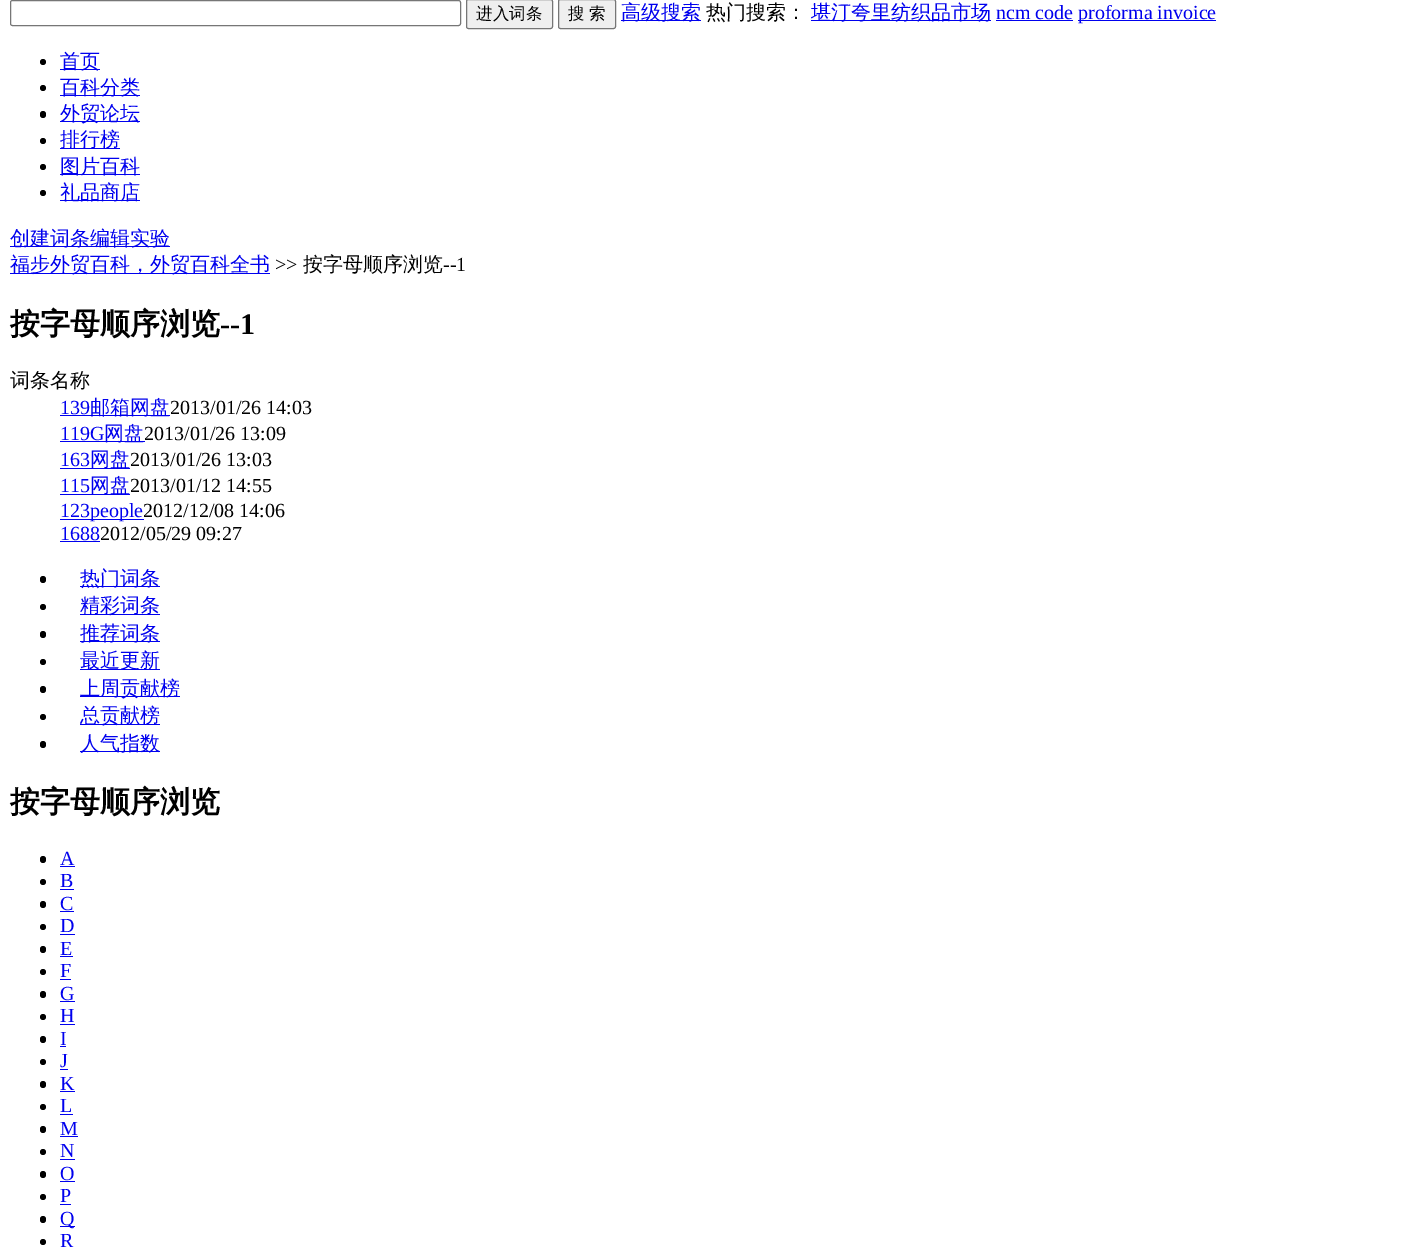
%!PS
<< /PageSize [1412 1249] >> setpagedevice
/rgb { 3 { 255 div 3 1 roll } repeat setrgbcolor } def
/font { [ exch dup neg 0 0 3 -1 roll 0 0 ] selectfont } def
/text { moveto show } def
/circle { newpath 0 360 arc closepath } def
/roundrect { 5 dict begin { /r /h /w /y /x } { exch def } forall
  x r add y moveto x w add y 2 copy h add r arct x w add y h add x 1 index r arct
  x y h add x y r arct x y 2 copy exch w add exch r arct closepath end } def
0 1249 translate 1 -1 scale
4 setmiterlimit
255 255 255 rgb
0 0 1412 1249 rectfill
118 118 118 rgb
10.5 0.5 450 25 2 roundrect stroke
239 239 239 rgb
466.5 -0.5 86 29 2 roundrect gsave fill grestore
118 118 118 rgb
stroke
239 239 239 rgb
558.5 -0.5 57 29 2 roundrect gsave fill grestore
118 118 118 rgb
stroke
0 0 238 rgb
621 20 80 1 rectfill
811 20 180 1 rectfill
996 20 77 1 rectfill
1078 20 138 1 rectfill
0 0 0 rgb
43 62 3 circle fill
0 0 238 rgb
60 69 40 1 rectfill
0 0 0 rgb
43 88 3 circle fill
0 0 238 rgb
60 95 80 1 rectfill
0 0 0 rgb
40 111 6 7 3 roundrect fill
0 0 238 rgb
60 121 80 1 rectfill
0 0 0 rgb
43 141 3 circle fill
0 0 238 rgb
60 148 60 1 rectfill
0 0 0 rgb
43 167 3 circle fill
0 0 238 rgb
60 174 80 1 rectfill
0 0 0 rgb
43 193 3 circle fill
0 0 238 rgb
60 200 80 1 rectfill
10 246 160 1 rectfill
10 273 260 1 rectfill
60 415 110 1 rectfill
60 441 85 1 rectfill
60 468 70 1 rectfill
60 494 70 1 rectfill
60 519 84 1 rectfill
60 541 40 1 rectfill
0 0 0 rgb
40 576 6 7 3 roundrect fill
0 0 238 rgb
80 586 80 1 rectfill
0 0 0 rgb
43 607 3 circle fill
0 0 238 rgb
80 614 80 1 rectfill
0 0 0 rgb
40 631 6 7 3 roundrect fill
0 0 238 rgb
80 641 80 1 rectfill
0 0 0 rgb
43 662 3 circle fill
0 0 238 rgb
80 669 80 1 rectfill
0 0 0 rgb
40 686 6 7 3 roundrect fill
0 0 238 rgb
80 696 100 1 rectfill
0 0 0 rgb
43 717 3 circle fill
0 0 238 rgb
80 724 80 1 rectfill
0 0 0 rgb
40 741 6 7 3 roundrect fill
0 0 238 rgb
80 751 80 1 rectfill
0 0 0 rgb
40 856 6 7 3 roundrect fill
0 0 238 rgb
60 866 15 1 rectfill
0 0 0 rgb
43 882 3 circle fill
0 0 238 rgb
60 889 14 1 rectfill
0 0 0 rgb
40 901 6 7 3 roundrect fill
0 0 238 rgb
60 911 14 1 rectfill
0 0 0 rgb
43 927 3 circle fill
0 0 238 rgb
60 934 15 1 rectfill
0 0 0 rgb
40 946 6 7 3 roundrect fill
0 0 238 rgb
60 956 13 1 rectfill
0 0 0 rgb
43 972 3 circle fill
0 0 238 rgb
60 979 11 1 rectfill
0 0 0 rgb
40 991 6 7 3 roundrect fill
0 0 238 rgb
60 1001 15 1 rectfill
0 0 0 rgb
43 1017 3 circle fill
0 0 238 rgb
60 1024 15 1 rectfill
0 0 0 rgb
40 1036 6 7 3 roundrect fill
0 0 238 rgb
60 1046 6 1 rectfill
0 0 0 rgb
43 1062 3 circle fill
0 0 238 rgb
60 1069 8 1 rectfill
0 0 0 rgb
40 1081 6 7 3 roundrect fill
0 0 238 rgb
60 1091 15 1 rectfill
0 0 0 rgb
43 1107 3 circle fill
0 0 238 rgb
60 1114 13 1 rectfill
0 0 0 rgb
40 1126 6 7 3 roundrect fill
0 0 238 rgb
60 1136 18 1 rectfill
0 0 0 rgb
43 1152 3 circle fill
0 0 238 rgb
60 1159 15 1 rectfill
0 0 0 rgb
40 1171 6 7 3 roundrect fill
0 0 238 rgb
60 1181 15 1 rectfill
0 0 0 rgb
43 1197 3 circle fill
0 0 238 rgb
60 1204 11 1 rectfill
0 0 0 rgb
40 1216 6 7 3 roundrect fill
0 0 238 rgb
60 1226 15 1 rectfill
0 0 0 rgb
43 1242 3 circle fill
/WenQuanYiZenHei-Medium 16.5 font
(进入词条) 476 19 text
(搜 索) 568 19 text
/WenQuanYiZenHei-Medium 20 font
0 0 238 rgb
(高级搜索) 621 19 text
0 0 0 rgb
(热门搜索：) 706 19 text
0 0 238 rgb
(堪汀夸里纺织品市场) 811 19 text
/LiberationSerif-Regular 20 font
(ncm code) 996 19 text
(proforma invoice) 1078 19 text
/WenQuanYiZenHei-Medium 20 font
(首页) 60 68 text
(百科分类) 60 94 text
(外贸论坛) 60 120 text
(排行榜) 60 146 text
(图片百科) 60 173 text
(礼品商店) 60 199 text
(创建词条编辑实验) 10 245 text
(福步外贸百科，外贸百科全书) 10 271 text
/LiberationSerif-Regular 20 font
0 0 0 rgb
(>>) 275 271 text
/WenQuanYiZenHei-Medium 20 font
(按字母顺序浏览) 303 271 text
/LiberationSerif-Regular 20 font
(--1) 443 271 text
/WenQuanYiZenHei-Bold 30 font
(按字母顺序浏览) 10 334 text
/LiberationSerif-Bold 30 font
(--1) 220 334 text
/WenQuanYiZenHei-Medium 20 font
(词条名称) 10 387 text
/LiberationSerif-Regular 20 font
0 0 238 rgb
(139) 60 414 text
/WenQuanYiZenHei-Medium 20 font
(邮箱网盘) 90 414 text
/LiberationSerif-Regular 20 font
0 0 0 rgb
(2013/01/26 14:03) 170 414 text
0 0 238 rgb
(119G) 60 440 text
/WenQuanYiZenHei-Medium 20 font
(网盘) 104 440 text
/LiberationSerif-Regular 20 font
0 0 0 rgb
(2013/01/26 13:09) 144 440 text
0 0 238 rgb
(163) 60 466 text
/WenQuanYiZenHei-Medium 20 font
(网盘) 90 466 text
/LiberationSerif-Regular 20 font
0 0 0 rgb
(2013/01/26 13:03) 130 466 text
0 0 238 rgb
(115) 60 492 text
/WenQuanYiZenHei-Medium 20 font
(网盘) 90 492 text
/LiberationSerif-Regular 20 font
0 0 0 rgb
(2013/01/12 14:55) 130 492 text
0 0 238 rgb
(123people) 60 517 text
0 0 0 rgb
(2012/12/08 14:06) 143 517 text
0 0 238 rgb
(1688) 60 540 text
0 0 0 rgb
(2012/05/29 09:27) 100 540 text
/WenQuanYiZenHei-Medium 20 font
0 0 238 rgb
(热门词条) 80 585 text
(精彩词条) 80 612 text
(推荐词条) 80 640 text
(最近更新) 80 667 text
(上周贡献榜) 80 695 text
(总贡献榜) 80 722 text
(人气指数) 80 750 text
/WenQuanYiZenHei-Bold 30 font
0 0 0 rgb
(按字母顺序浏览) 10 812 text
/LiberationSerif-Regular 20 font
0 0 238 rgb
(A) 60 865 text
(B) 60 887 text
(C) 60 910 text
(D) 60 932 text
(E) 60 955 text
(F) 60 977 text
(G) 60 1000 text
(H) 60 1022 text
(I) 60 1045 text
(J) 60 1067 text
(K) 60 1090 text
(L) 60 1112 text
(M) 60 1135 text
(N) 60 1157 text
(O) 60 1180 text
(P) 60 1202 text
(Q) 60 1225 text
(R) 60 1247 text
showpage
